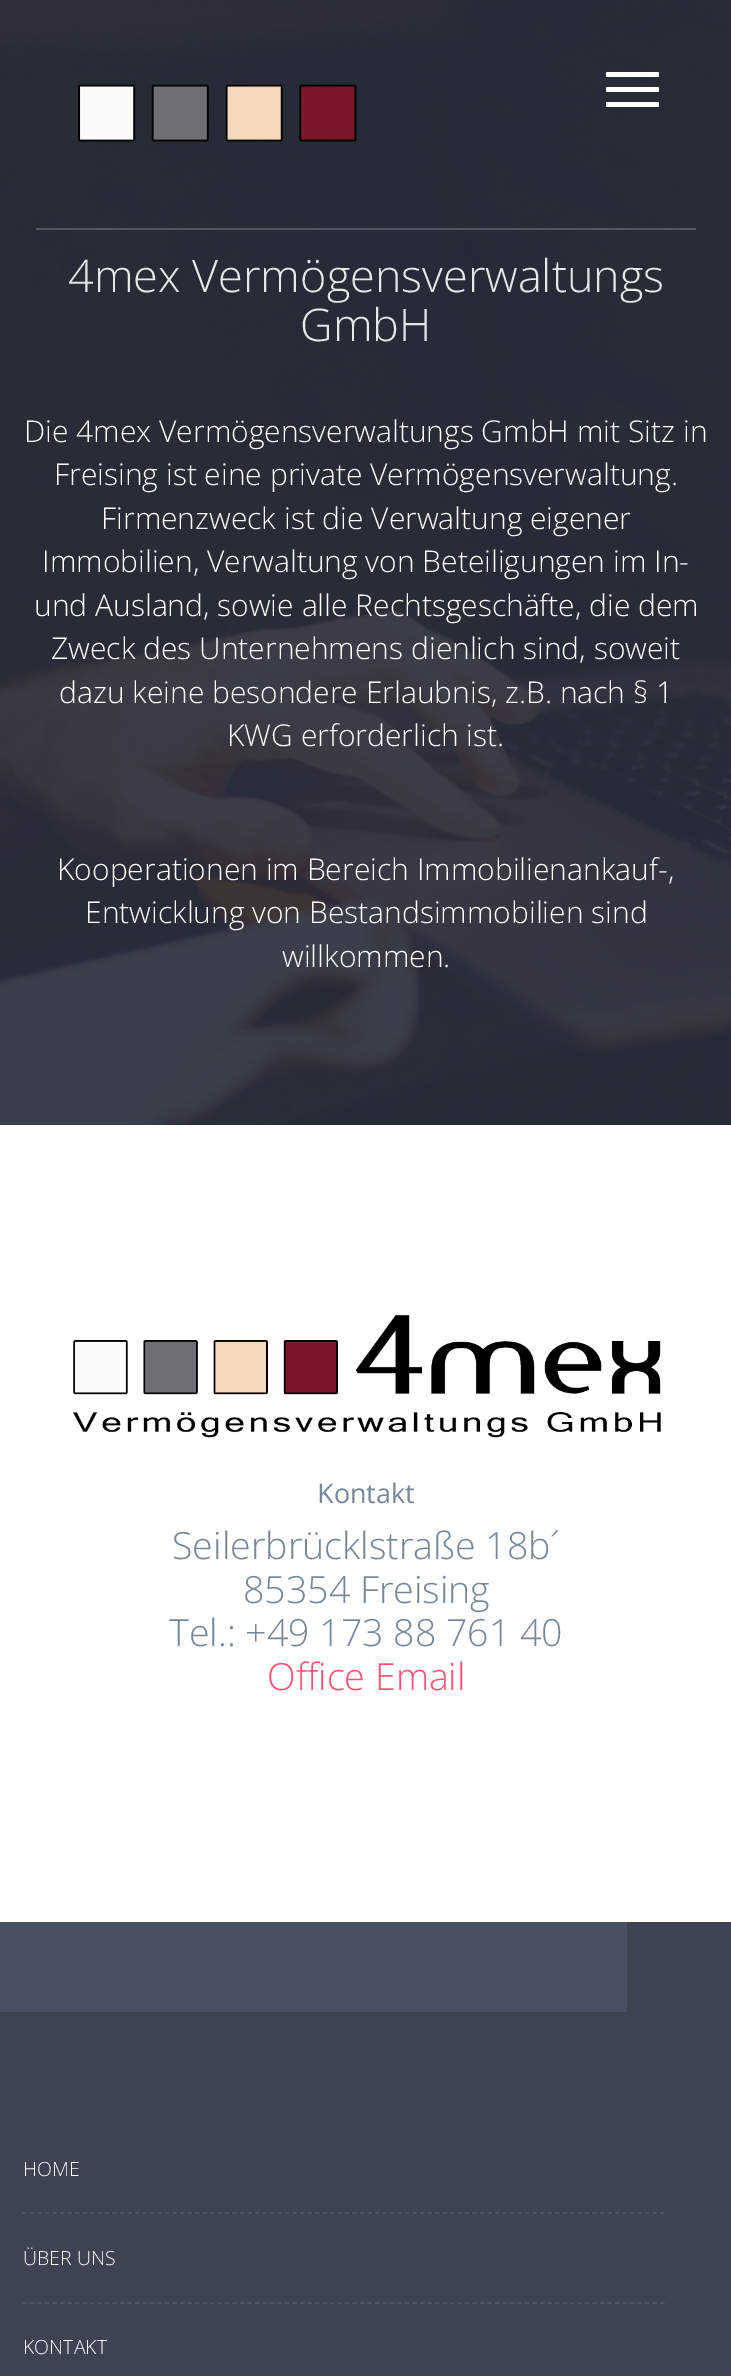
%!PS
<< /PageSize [731 2376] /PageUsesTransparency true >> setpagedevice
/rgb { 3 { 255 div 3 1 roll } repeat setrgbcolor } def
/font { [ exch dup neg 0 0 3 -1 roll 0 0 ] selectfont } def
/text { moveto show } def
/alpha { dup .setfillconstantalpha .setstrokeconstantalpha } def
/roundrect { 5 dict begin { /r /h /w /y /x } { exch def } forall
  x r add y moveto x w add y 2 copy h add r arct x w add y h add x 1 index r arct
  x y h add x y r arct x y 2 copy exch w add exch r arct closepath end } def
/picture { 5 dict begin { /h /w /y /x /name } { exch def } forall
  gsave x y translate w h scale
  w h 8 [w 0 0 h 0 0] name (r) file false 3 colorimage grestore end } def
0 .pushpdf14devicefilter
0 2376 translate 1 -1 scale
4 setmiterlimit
255 255 255 rgb
0 0 731 2376 rectfill
(img_01.rgb) 0 0 731 1125 picture
0.2 alpha
36 228 660 2 rectfill
1 alpha
(img_02.rgb) 78 84 279 58 picture
606 87 53 5 1.5 roundrect fill
606 72 53 5 1.5 roundrect fill
606 102 53 5 1.5 roundrect fill
(img_03.rgb) 73 1315 588 123 picture
73 80 97 rgb
0 1922 627 90 rectfill
62 68 82 rgb
627 1922 104 90 rectfill
61 67 81 rgb
0 2012 731 364 rectfill
78 86 108 rgb
1.5 setlinewidth
[4.5 3] 0 setdash
22.5 2213 moveto 642 0 rlineto stroke
22.5 2303 moveto 642 0 rlineto stroke
/OpenSans-Light 45 font
230 233 234 rgb
(4mex Vermögensverwaltungs) 68 292 text
(GmbH) 300 341 text
/OpenSans-Light 30 font
255 255 255 rgb
(Die 4mex Vermögensverwaltungs GmbH mit Sitz in) 24 442 text
(Freising ist eine private Vermögensverwaltung.) 54 485 text
(Firmenzweck ist die Verwaltung eigener) 101 529 text
(Immobilien, Verwaltung von Beteiligungen im In-) 42 572 text
(und Ausland, sowie alle Rechtsgeschäfte, die dem) 34 616 text
(Zweck des Unternehmens dienlich sind, soweit) 51 659 text
(dazu keine besondere Erlaubnis, z.B. nach § 1) 59 703 text
(KWG erforderlich ist.) 227 746 text
(Kooperationen im Bereich Immobilienankauf-,) 57 880 text
(Entwicklung von Bestandsimmobilien sind) 85 923 text
(willkommen.) 282 967 text
/OpenSans-Regular 27 font
119 134 152 rgb
(Kontakt) 317 1503 text
/OpenSans-Light 37.5 font
(Seilerbrücklstraße 18b´) 172 1559 text
(85354 Freising) 243 1603 text
(Tel.: +49 173 88 761 40) 169 1646 text
255 82 116 rgb
(Office Email) 267 1690 text
/OpenSans-Light 19.5 font
255 255 255 rgb
(HOME) 23 2176 text
(ÜBER UNS) 23 2265 text
(KONTAKT) 23 2354 text
.poppdf14devicefilter showpage
